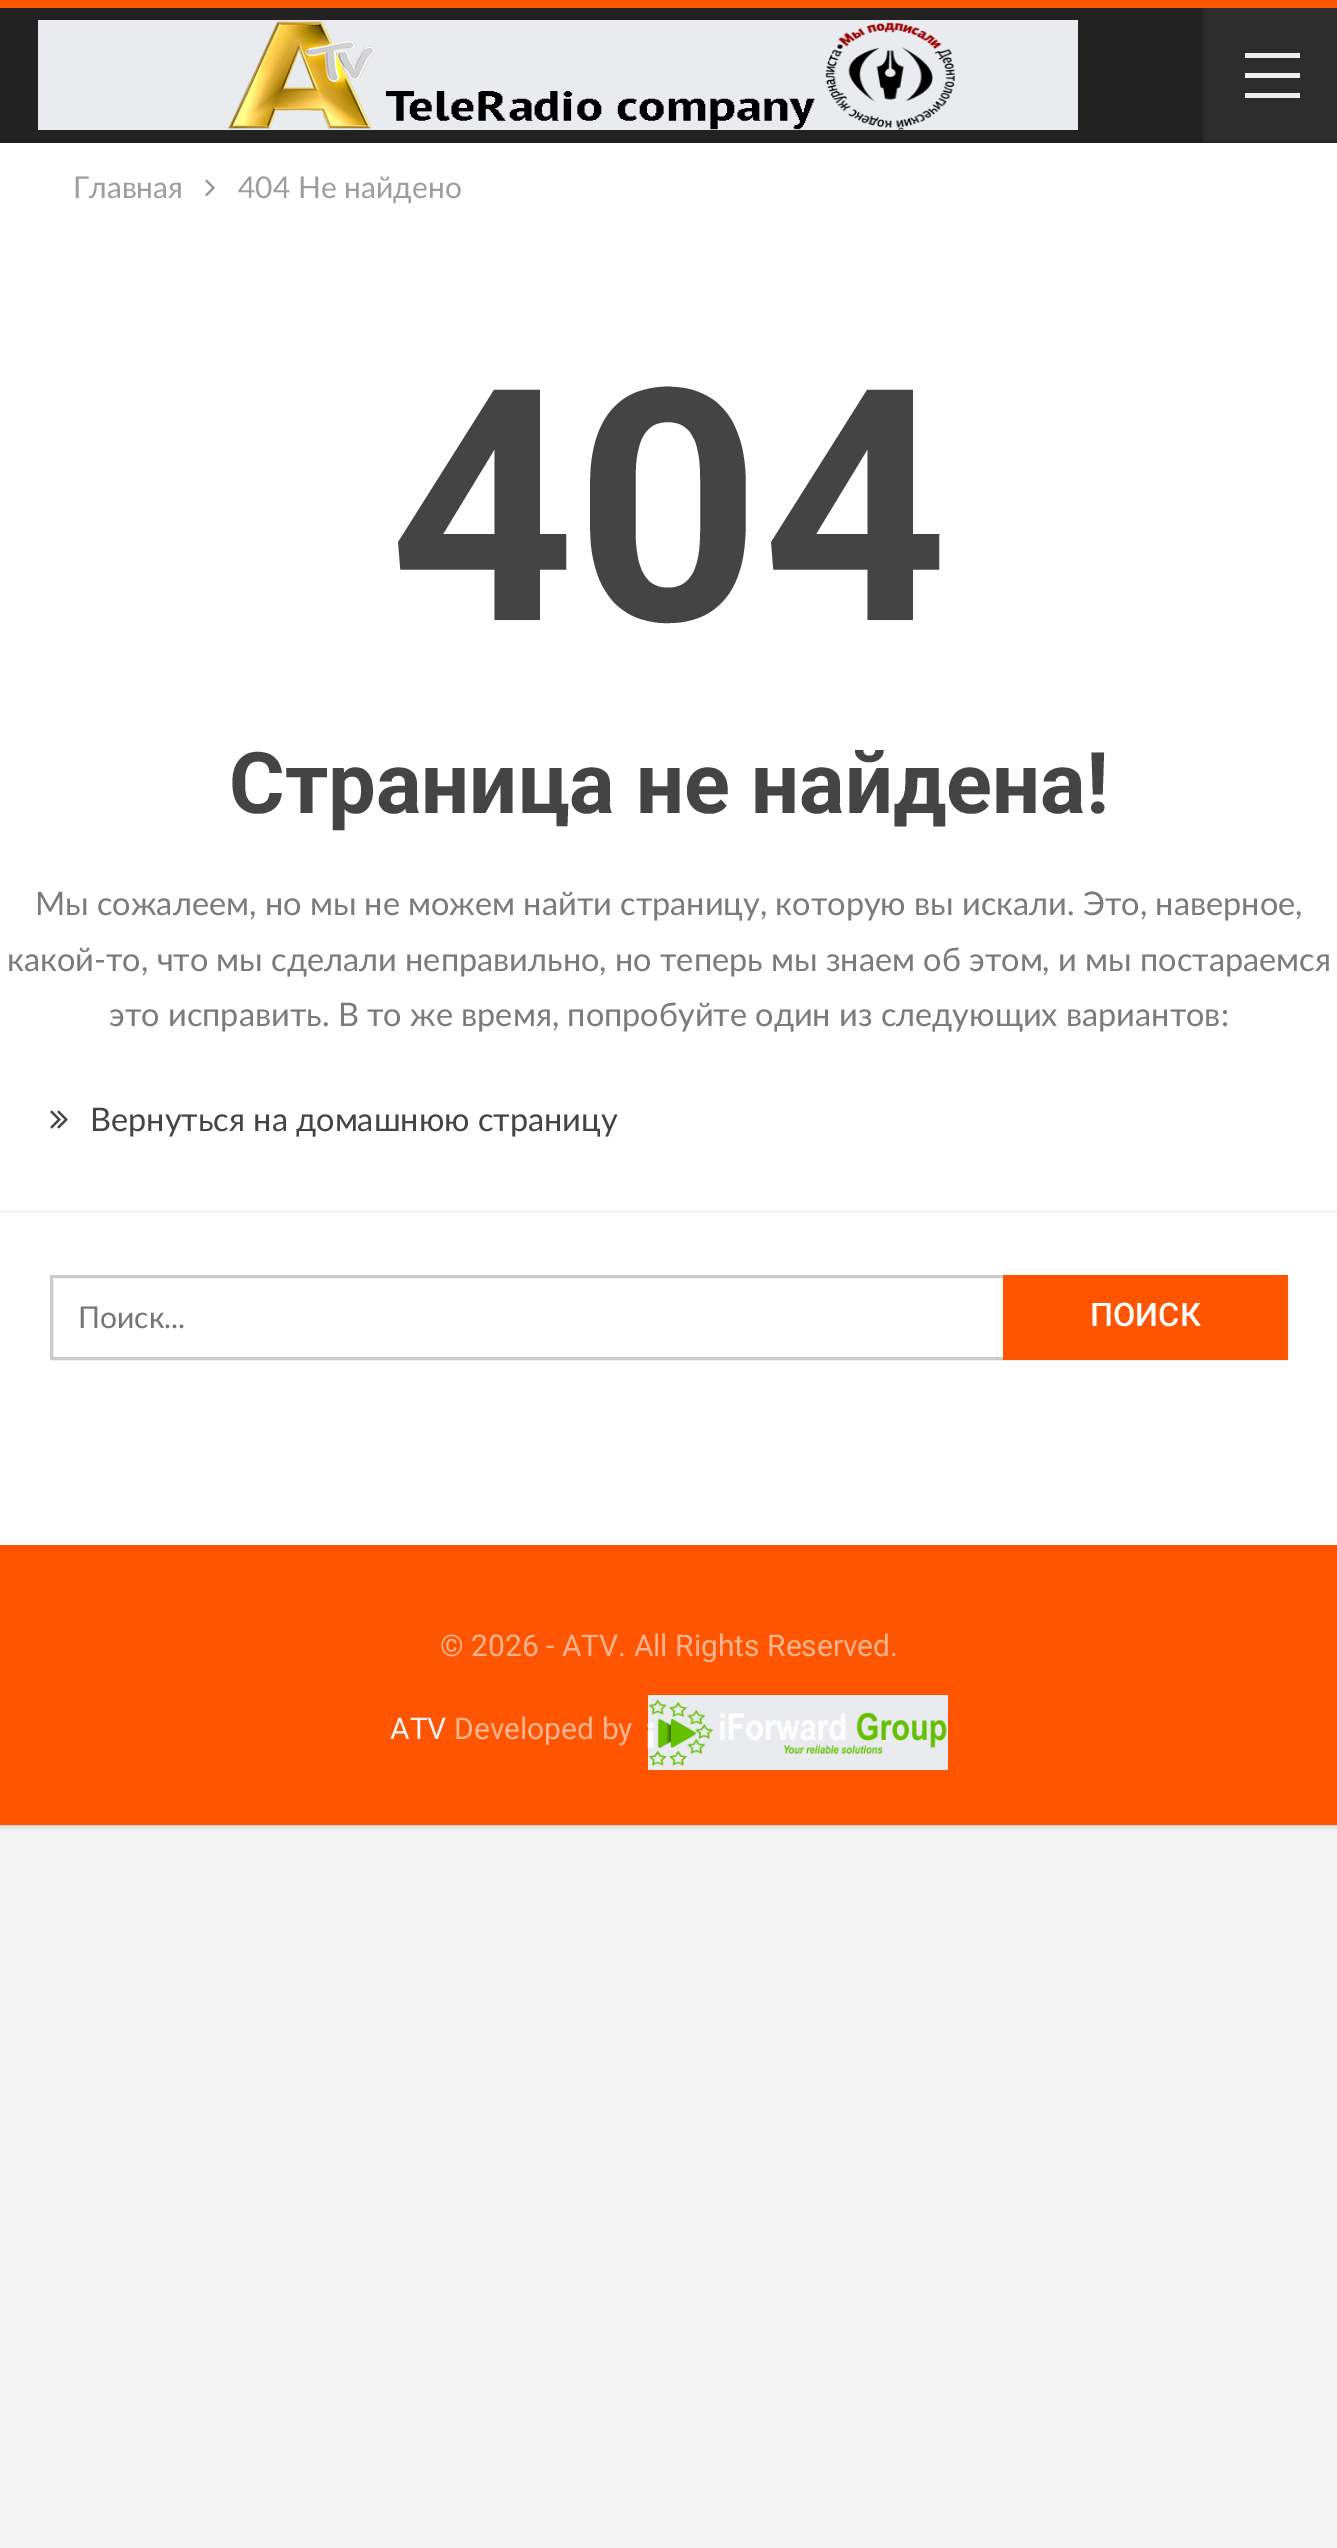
%!PS
<< /PageSize [1337 2548] /PageUsesTransparency true >> setpagedevice
/rgb { 3 { 255 div 3 1 roll } repeat setrgbcolor } def
/font { [ exch dup neg 0 0 3 -1 roll 0 0 ] selectfont } def
/text { moveto show } def
/alpha { dup .setfillconstantalpha .setstrokeconstantalpha } def
/roundrect { 5 dict begin { /r /h /w /y /x } { exch def } forall
  x r add y moveto x w add y 2 copy h add r arct x w add y h add x 1 index r arct
  x y h add x y r arct x y 2 copy exch w add exch r arct closepath end } def
/shadow { 12 dict begin { /a /b /q /h /w /y /x } { exch def } forall gsave /was 0 def
  9 -2 -9 { dup b mul 4 div /e exch def 1 sub .425 mul 2.718 exch exp 1 add a .99 .min exch div /now exch def
    1 1 now sub 1 was sub div sub alpha /was now def
    w h .min e 2 mul add 0 gt { x e sub y e sub w e 2 mul add h e 2 mul add
      q e add b .6 mul add w h .min 2 div e add .min 0 .max roundrect fill } if } for grestore end } def
/picture { 5 dict begin { /h /w /y /x /name } { exch def } forall
  gsave x y translate w h scale
  w h 8 [w 0 0 h 0 0] name (r) file false 3 colorimage grestore end } def
0 .pushpdf14devicefilter
0 2548 translate 1 -1 scale
4 setmiterlimit
243 243 243 rgb
0 0 1337 2548 rectfill
255 84 0 rgb
0 0 1337 8 rectfill
34 34 34 rgb
0 8 1203 135 rectfill
233 235 238 rgb
38 20 1040 110 rectfill
(img_01.rgb) 228 21 727 109 picture
45 45 45 rgb
1206 8 131 135 rectfill
42 42 42 rgb
1203 8 3 135 rectfill
236 240 241 rgb
1245 73 55 5 rectfill
1245 53 55 5 rectfill
1245 93 55 5 rectfill
0 0 0 rgb
0 143 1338 1682 0 2.5 0.27 shadow
255 255 255 rgb
0 143 1337 1402 rectfill
(img_02.rgb) 205 179 10 18 picture
(img_03.rgb) 50 1110 18 19 picture
244 244 244 rgb
0 1210 1337 3 rectfill
203 203 203 rgb
3 setlinewidth
51.5 1276.5 1235 82 rectstroke
255 84 0 rgb
1003 1275 285 85 rectfill
0 1545 1337 280 rectfill
233 235 238 rgb
648 1695 300 75 rectfill
(img_04.rgb) 647 1699 300 67 picture
/Lato-Regular 30 font
158 158 158 rgb
(Главная) 73 198 text
(404 Не найдено) 238 198 text
/Roboto-Bold 325 font
68 68 68 rgb
(404) 389 620 text
/Roboto-Bold 85 font
(Страница не найдена!) 229 813 text
/Lato-Regular 32.5 font
123 123 123 rgb
(Мы сожалеем, но мы не можем найти страницу, которую вы искали. Это, наверное,) 35 915 text
(какой-то, что мы сделали неправильно, но теперь мы знаем об этом, и мы постараемся) 7 971 text
(это исправить. В то же время, попробуйте один из следующих вариантов:) 109 1026 text
68 68 68 rgb
(Вернуться на домашнюю страницу) 90 1131 text
/Lato-Regular 30 font
117 117 117 rgb
(Поиск...) 78 1328 text
/Roboto-Medium 32.5 font
255 255 255 rgb
(ПОИСК) 1090 1326 text
/Roboto-Regular 30 font
255 181 145 rgb
(© 2026 - ATV. All Rights Reserved.) 440 1656 text
243 243 243 rgb
(ATV) 390 1739 text
255 181 145 rgb
(Developed by) 454 1739 text
.poppdf14devicefilter showpage
